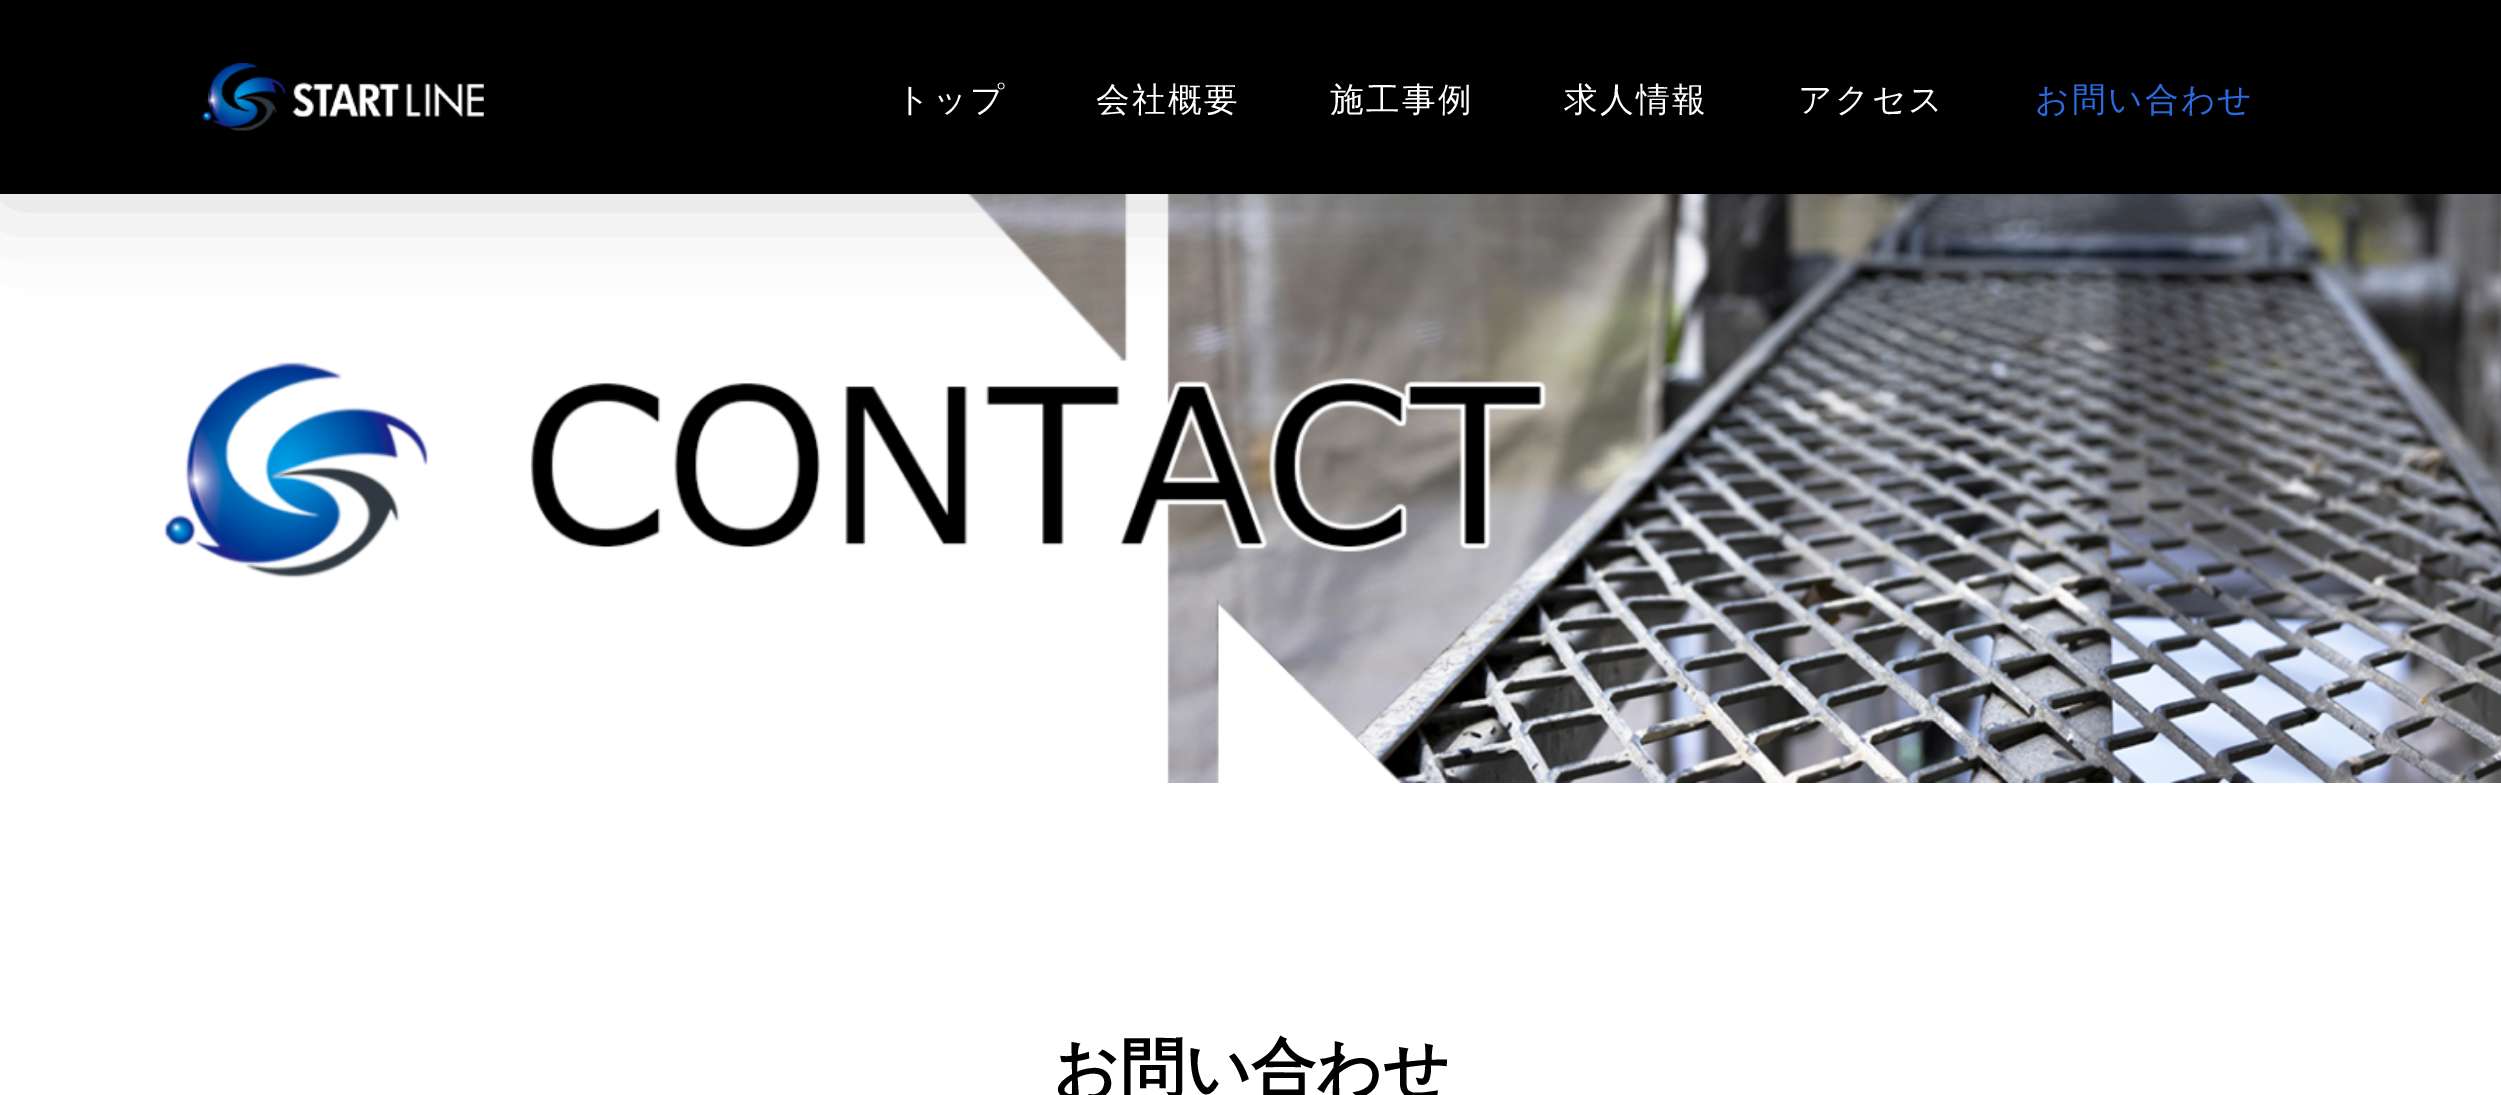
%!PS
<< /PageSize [2501 1095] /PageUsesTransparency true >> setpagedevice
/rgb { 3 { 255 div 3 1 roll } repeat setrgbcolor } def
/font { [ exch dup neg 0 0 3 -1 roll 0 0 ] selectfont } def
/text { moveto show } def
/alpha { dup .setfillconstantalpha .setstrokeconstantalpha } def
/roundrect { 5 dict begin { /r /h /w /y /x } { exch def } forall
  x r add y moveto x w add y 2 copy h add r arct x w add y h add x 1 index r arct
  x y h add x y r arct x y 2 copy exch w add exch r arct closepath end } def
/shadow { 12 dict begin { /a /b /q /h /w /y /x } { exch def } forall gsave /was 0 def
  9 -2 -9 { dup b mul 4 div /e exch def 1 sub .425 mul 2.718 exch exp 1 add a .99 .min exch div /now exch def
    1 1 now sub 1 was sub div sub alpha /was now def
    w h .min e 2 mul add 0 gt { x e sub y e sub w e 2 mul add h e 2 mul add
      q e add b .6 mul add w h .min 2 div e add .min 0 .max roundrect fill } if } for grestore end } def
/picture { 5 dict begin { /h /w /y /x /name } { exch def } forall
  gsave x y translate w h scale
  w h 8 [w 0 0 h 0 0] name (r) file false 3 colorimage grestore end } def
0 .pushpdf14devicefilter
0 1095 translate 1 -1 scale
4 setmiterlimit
255 255 255 rgb
0 0 2501 1095 rectfill
(img_02.rgb) 164 194 2337 589 picture
0 0 0 rgb
0 7 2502 193 0 50.5 0.15 shadow
0 0 2501 194 rectfill
(img_01.rgb) 202 63 282 68 picture
/WenQuanYiZenHei-Medium 33.75 font
255 255 255 rgb
896 111 moveto 2.25 0 (トップ) ashow
1096 111 moveto 2.25 0 (会社概要) ashow
1330 111 moveto 2.25 0 (施工事例) ashow
1564 111 moveto 2.25 0 (求人情報) ashow
1798 111 moveto 2.25 0 (アクセス) ashow
42 106 224 rgb
2035 111 moveto 2.25 0 (お問い合わせ) ashow
/WenQuanYiZenHei-Bold 65 font
0 0 0 rgb
(お問い合わせ) 1053 1091 text
.poppdf14devicefilter showpage
